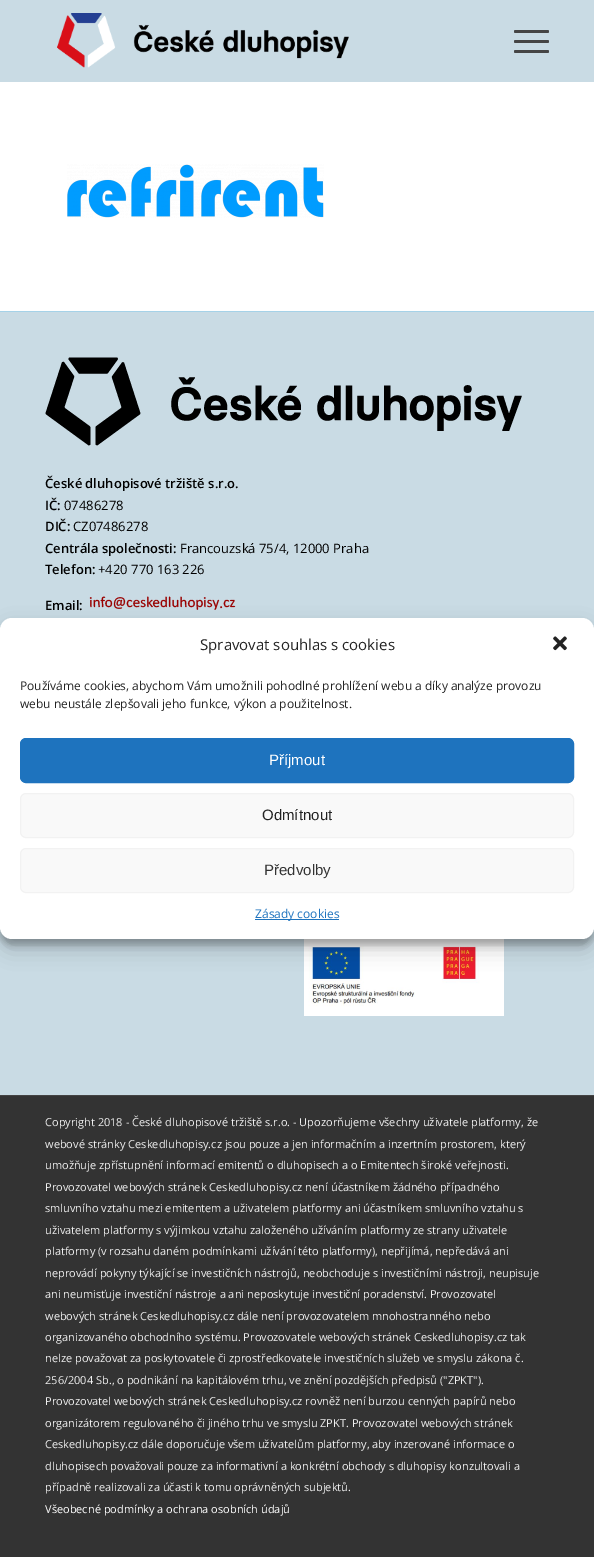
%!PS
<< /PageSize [594 1557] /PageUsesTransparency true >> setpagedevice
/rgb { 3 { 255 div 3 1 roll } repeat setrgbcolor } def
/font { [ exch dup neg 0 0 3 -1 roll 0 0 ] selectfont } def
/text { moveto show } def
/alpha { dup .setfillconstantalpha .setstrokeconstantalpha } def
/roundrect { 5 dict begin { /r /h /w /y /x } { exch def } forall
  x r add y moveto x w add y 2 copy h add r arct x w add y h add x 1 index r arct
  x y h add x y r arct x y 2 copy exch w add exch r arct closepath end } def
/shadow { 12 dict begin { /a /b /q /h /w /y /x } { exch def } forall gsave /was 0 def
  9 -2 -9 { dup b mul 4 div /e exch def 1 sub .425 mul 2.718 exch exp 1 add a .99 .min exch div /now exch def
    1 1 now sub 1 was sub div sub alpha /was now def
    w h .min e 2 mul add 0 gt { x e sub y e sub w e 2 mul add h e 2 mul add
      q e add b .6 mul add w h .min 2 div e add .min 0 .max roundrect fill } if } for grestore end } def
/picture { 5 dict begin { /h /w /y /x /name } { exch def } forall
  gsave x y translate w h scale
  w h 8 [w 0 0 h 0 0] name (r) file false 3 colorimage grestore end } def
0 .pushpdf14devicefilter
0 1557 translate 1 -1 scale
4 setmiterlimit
51 51 51 rgb
0 0 594 1557 rectfill
201 219 228 rgb
0 0 594 82 rectfill
(img_01.rgb) 57 13 292 55 picture
69 69 69 rgb
514 40 35 3 1.5 roundrect fill
514 30 35 3 1.5 roundrect fill
514 50 35 3 1.5 roundrect fill
201 219 228 rgb
0 312 594 783 rectfill
255 255 255 rgb
0 82 594 229 rectfill
(img_02.rgb) 67 164 257 54 picture
165 210 232 rgb
0 311 594 1 rectfill
(img_03.rgb) 45 357 477 89 picture
(img_04.rgb) 89 596 147 14 picture
(img_05.rgb) 304 939 200 77 picture
68 68 68 rgb
0 1095 594 1 rectfill
0 0 0 rgb
0 624 594 321 12 3 0.23 shadow
0 628 594 321 12 10 0.19 shadow
255 255 255 rgb
0 618 594 321 12 roundrect fill
(img_06.rgb) 553 636 14 15 picture
30 115 190 rgb
20.5 738.5 553 44 5.5 roundrect gsave fill grestore
stroke
249 249 249 rgb
20.5 793.5 553 44 5.5 roundrect gsave fill grestore
242 242 242 rgb
stroke
249 249 249 rgb
20.5 848.5 553 44 5.5 roundrect gsave fill grestore
242 242 242 rgb
stroke
30 115 190 rgb
255 919 84 1 rectfill
/OpenSans-SemiBold 13 font
0 0 0 rgb
(České dluhopisové tržiště s.r.o.) 45 488 text
(IČ:) 45 510 text
/OpenSans-Regular 13 font
(07486278) 64 510 text
/OpenSans-SemiBold 13 font
(DIČ:) 45 531 text
/OpenSans-Regular 13 font
(CZ07486278) 73 531 text
/OpenSans-SemiBold 13 font
(Centrála společnosti:) 45 553 text
/OpenSans-Regular 13 font
(Francouzská 75/4, 12000 Praha) 180 553 text
/OpenSans-SemiBold 13 font
(Telefon:) 45 574 text
/OpenSans-Regular 13 font
(+420 770 163 226) 98 574 text
/OpenSans-SemiBold 13 font
(Email:) 45 610 text
/OpenSans-Regular 11 font
238 238 238 rgb
(Copyright 2018 - České dluhopisové tržiště s.r.o. - Upozorňujeme všechny uživatele platformy, že) 45 1126 text
(webové stránky Ceskedluhopisy.cz jsou pouze a jen informačním a inzertním prostorem, který) 45 1148 text
(umožňuje zpřístupnění informací emitentů o dluhopisech a o Emitentech široké veřejnosti.) 45 1169 text
(Provozovatel webových stránek Ceskedluhopisy.cz není účastníkem žádného případného) 45 1191 text
(smluvního vztahu mezi emitentem a uživatelem platformy ani účastníkem smluvního vztahu s) 45 1212 text
(uživatelem platformy s výjimkou vztahu založeného užíváním platformy ze strany uživatele) 45 1234 text
(platformy \(v rozsahu daném podmínkami užívání této platformy\), nepřijímá, nepředává ani) 45 1255 text
(neprovádí pokyny týkající se investičních nástrojů, neobchoduje s investičními nástroji, neupisuje) 45 1277 text
(ani neumisťuje investiční nástroje a ani neposkytuje investiční poradenství. Provozovatel) 45 1298 text
(webových stránek Ceskedluhopisy.cz dále není provozovatelem mnohostranného nebo) 45 1320 text
(organizovaného obchodního systému. Provozovatele webových stránek Ceskedluhopisy.cz tak) 45 1341 text
(nelze považovat za poskytovatele či zprostředkovatele investičních služeb ve smyslu zákona č.) 45 1362 text
(256/2004 Sb., o podnikání na kapitálovém trhu, ve znění pozdějších předpisů \("ZPKT"\).) 45 1384 text
(Provozovatel webových stránek Ceskedluhopisy.cz rovněž není burzou cenných papírů nebo) 45 1405 text
(organizátorem regulovaného či jiného trhu ve smyslu ZPKT. Provozovatel webových stránek) 45 1427 text
(Ceskedluhopisy.cz dále doporučuje všem uživatelům platformy, aby inzerované informace o) 45 1448 text
(dluhopisech považovali pouze za informativní a konkrétní obchody s dluhopisy konzultovali a) 45 1470 text
(případně realizovali za účasti k tomu oprávněných subjektů.) 45 1491 text
255 255 255 rgb
(Všeobecné podmínky a ochrana osobních údajů) 45 1513 text
/OpenSans-Regular 15 font
34 34 34 rgb
(Spravovat souhlas s cookies) 200 650 text
/OpenSans-Regular 12 font
(Používáme cookies, abychom Vám umožnili pohodlné prohlížení webu a díky analýze provozu) 20 690 text
(webu neustále zlepšovali jeho funkce, výkon a použitelnost.) 20 708 text
/LiberationSans-Regular 15 font
255 255 255 rgb
(Příjmout) 269 765 text
34 34 34 rgb
(Odmítnout) 262 820 text
51 51 51 rgb
(Předvolby) 264 875 text
/OpenSans-Regular 12 font
30 115 190 rgb
(Zásady cookies) 255 918 text
.poppdf14devicefilter showpage
